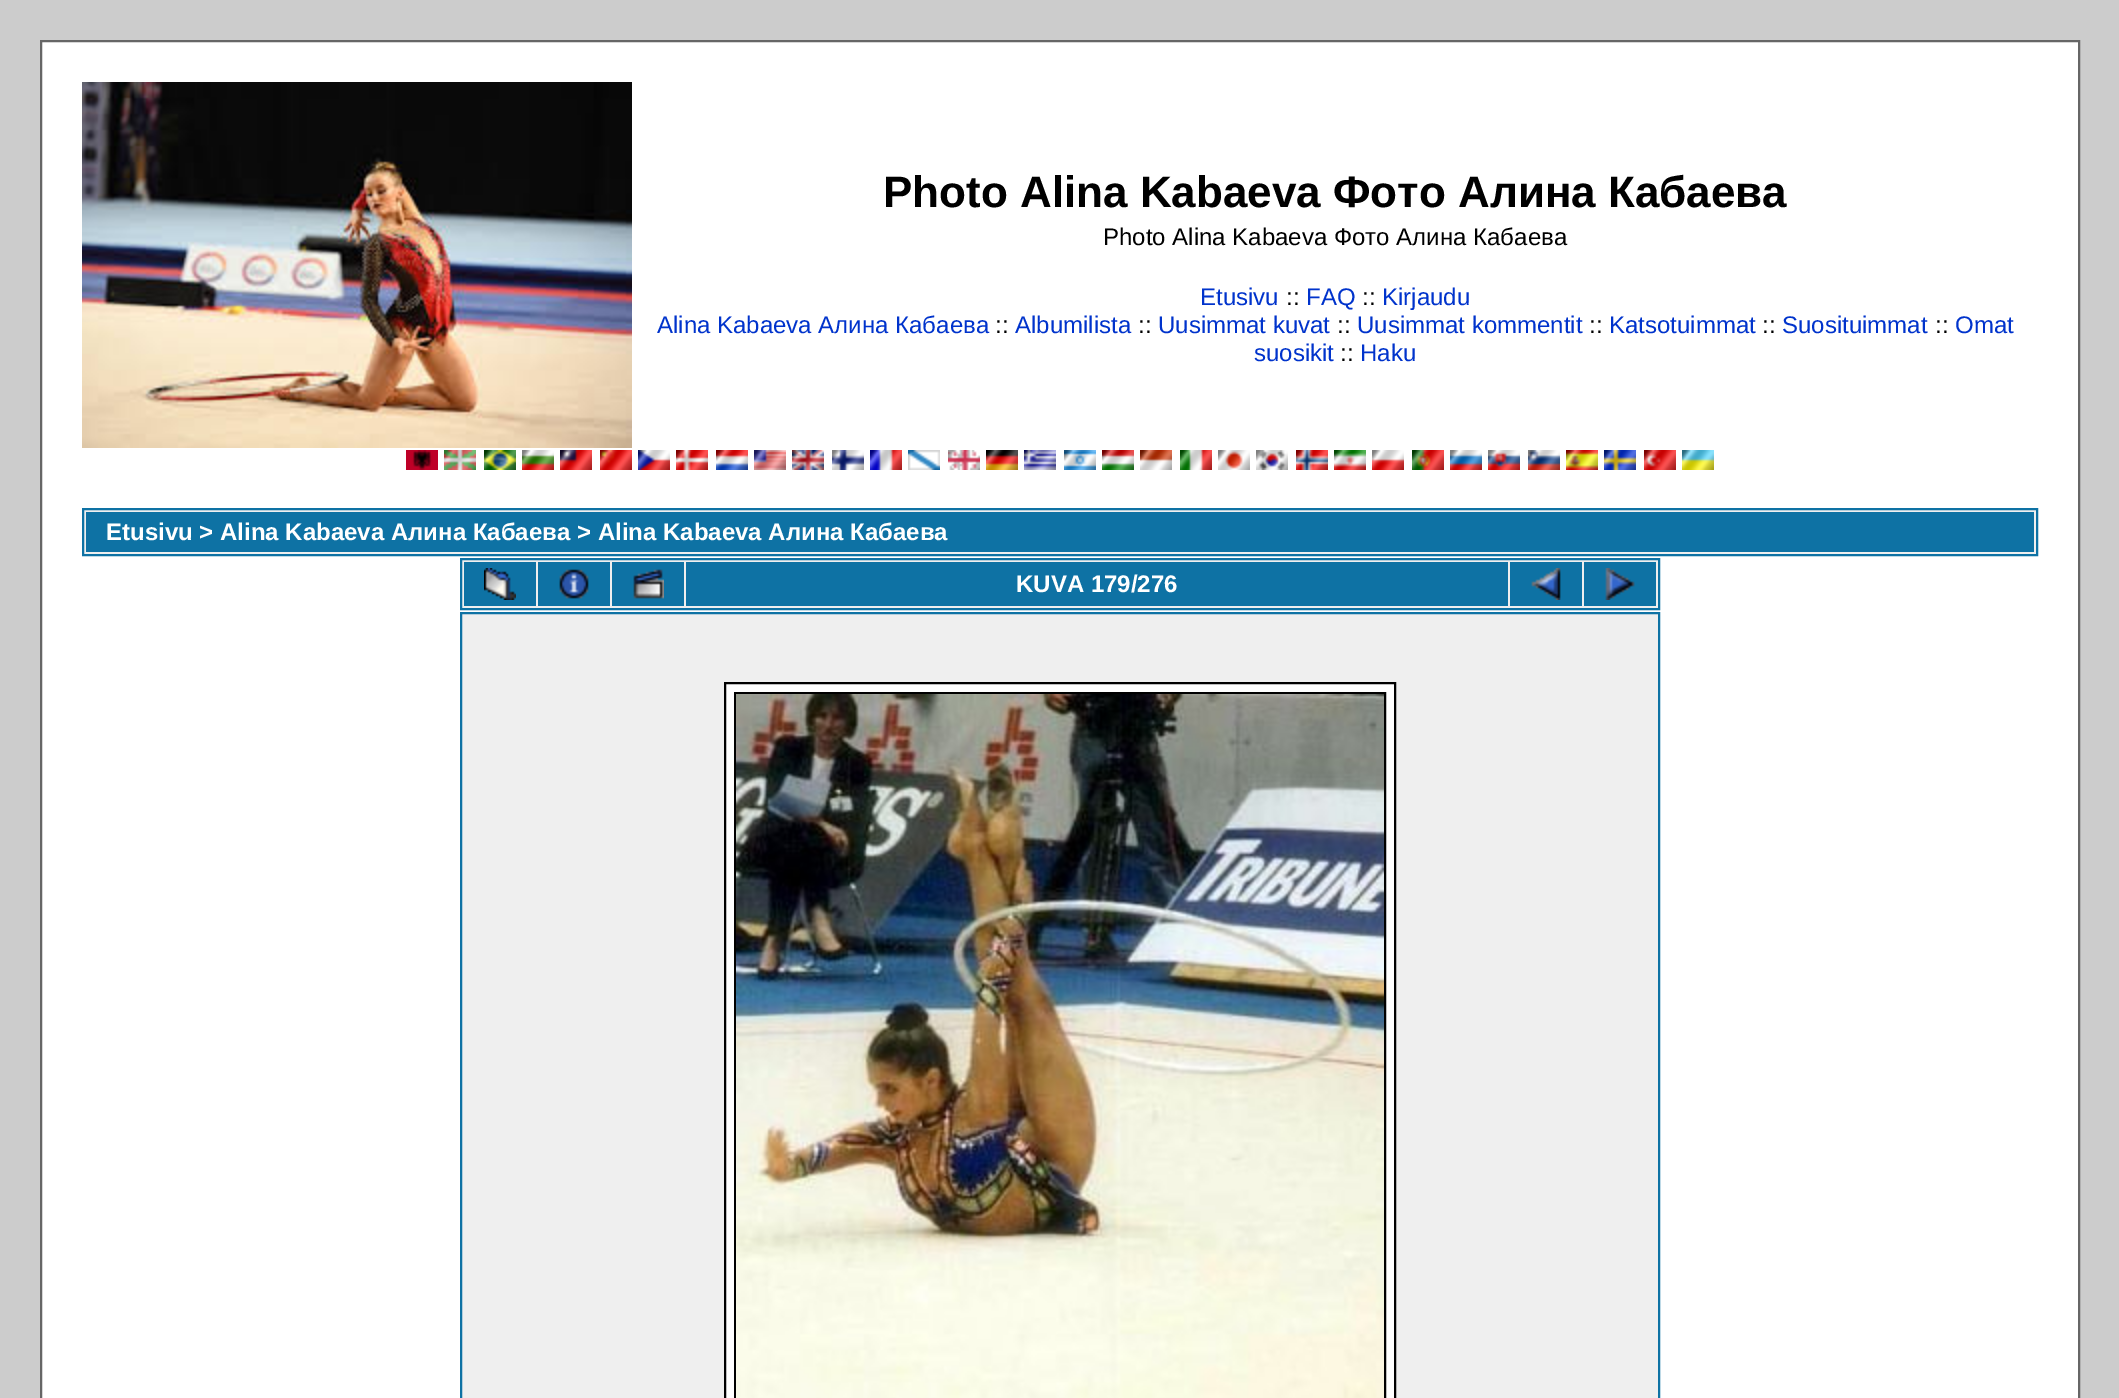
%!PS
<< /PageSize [2119 1398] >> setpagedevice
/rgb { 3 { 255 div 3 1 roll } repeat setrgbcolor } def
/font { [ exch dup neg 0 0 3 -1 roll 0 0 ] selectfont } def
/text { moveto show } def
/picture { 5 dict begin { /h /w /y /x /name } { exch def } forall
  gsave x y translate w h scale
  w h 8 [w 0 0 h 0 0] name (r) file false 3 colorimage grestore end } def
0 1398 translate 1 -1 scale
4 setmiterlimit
204 204 204 rgb
0 0 2119 1398 rectfill
255 255 255 rgb
41 41 moveto 2038 0 rlineto 0 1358 rlineto -2038 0 rlineto closepath gsave fill grestore
102 102 102 rgb
2 setlinewidth
stroke
(img_01.rgb) 82 82 550 366 picture
(img_02.rgb) 406 450 32 20 picture
(img_03.rgb) 444 450 32 20 picture
(img_04.rgb) 484 450 32 20 picture
(img_05.rgb) 522 450 32 20 picture
(img_06.rgb) 560 450 32 20 picture
(img_07.rgb) 600 450 32 20 picture
(img_08.rgb) 638 450 32 20 picture
(img_09.rgb) 676 450 32 20 picture
(img_10.rgb) 716 450 32 20 picture
(img_11.rgb) 754 450 32 20 picture
(img_12.rgb) 792 450 32 20 picture
(img_13.rgb) 832 450 32 20 picture
(img_14.rgb) 870 450 32 20 picture
(img_15.rgb) 908 450 32 20 picture
(img_16.rgb) 948 450 32 20 picture
(img_17.rgb) 986 450 32 20 picture
(img_18.rgb) 1024 450 32 20 picture
(img_19.rgb) 1064 450 32 20 picture
(img_20.rgb) 1102 450 32 20 picture
(img_21.rgb) 1140 450 32 20 picture
(img_22.rgb) 1180 450 32 20 picture
(img_23.rgb) 1218 450 32 20 picture
(img_24.rgb) 1256 450 32 20 picture
(img_25.rgb) 1296 450 32 20 picture
(img_26.rgb) 1334 450 32 20 picture
(img_27.rgb) 1372 450 32 20 picture
(img_28.rgb) 1412 450 32 20 picture
(img_29.rgb) 1450 450 32 20 picture
(img_30.rgb) 1488 450 32 20 picture
(img_31.rgb) 1528 450 32 20 picture
(img_32.rgb) 1566 450 32 20 picture
(img_33.rgb) 1604 450 32 20 picture
(img_34.rgb) 1644 450 32 20 picture
(img_35.rgb) 1682 450 32 20 picture
239 239 239 rgb
83 509 moveto 1954 0 rlineto 0 46 rlineto -1954 0 rlineto closepath gsave fill grestore
14 114 164 rgb
stroke
86 512 1948 40 rectfill
239 239 239 rgb
461 559 moveto 1198 0 rlineto 0 50 rlineto -1198 0 rlineto closepath gsave fill grestore
14 114 164 rgb
stroke
464 562 72 44 rectfill
(img_36.rgb) 484 568 32 32 picture
538 562 72 44 rectfill
(img_37.rgb) 559 569 30 30 picture
612 562 72 44 rectfill
(img_38.rgb) 633 569 31 30 picture
686 562 822 44 rectfill
1510 562 72 44 rectfill
(img_39.rgb) 1531 568 30 32 picture
1584 562 72 44 rectfill
(img_40.rgb) 1605 568 30 32 picture
239 239 239 rgb
461 613 moveto 1198 0 rlineto 0 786 rlineto -1198 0 rlineto closepath gsave fill grestore
14 114 164 rgb
stroke
255 255 255 rgb
725 683 moveto 670 0 rlineto 0 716 rlineto -670 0 rlineto closepath gsave fill grestore
0 0 0 rgb
stroke
735 693 650 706 rectstroke
(img_41.rgb) 736 694 648 704 picture
/LiberationSans-Bold 44 font
(Photo Alina Kabaeva Фото Алина Кабаева) 883 207 text
/LiberationSans-Regular 24 font
(Photo Alina Kabaeva Фото Алина Кабаева) 1103 245 text
0 51 204 rgb
(Etusivu) 1200 305 text
0 0 0 rgb
(::) 1286 305 text
0 51 204 rgb
(FAQ) 1306 305 text
0 0 0 rgb
(::) 1362 305 text
0 51 204 rgb
(Kirjaudu) 1382 305 text
(Alina Kabaeva Алина Кабаева) 657 333 text
0 0 0 rgb
(::) 995 333 text
0 51 204 rgb
(Albumilista) 1015 333 text
0 0 0 rgb
(::) 1138 333 text
0 51 204 rgb
(Uusimmat kuvat) 1158 333 text
0 0 0 rgb
(::) 1337 333 text
0 51 204 rgb
(Uusimmat kommentit) 1357 333 text
0 0 0 rgb
(::) 1589 333 text
0 51 204 rgb
(Katsotuimmat) 1609 333 text
0 0 0 rgb
(::) 1762 333 text
0 51 204 rgb
(Suosituimmat) 1782 333 text
0 0 0 rgb
(::) 1935 333 text
0 51 204 rgb
(Omat) 1955 333 text
(suosikit) 1254 361 text
0 0 0 rgb
(::) 1340 361 text
0 51 204 rgb
(Haku) 1360 361 text
/LiberationSans-Bold 24 font
255 255 255 rgb
(Etusivu > Alina Kabaeva Алина Кабаева > Alina Kabaeva Алина Кабаева) 106 540 text
(KUVA 179/276) 1016 592 text
showpage
